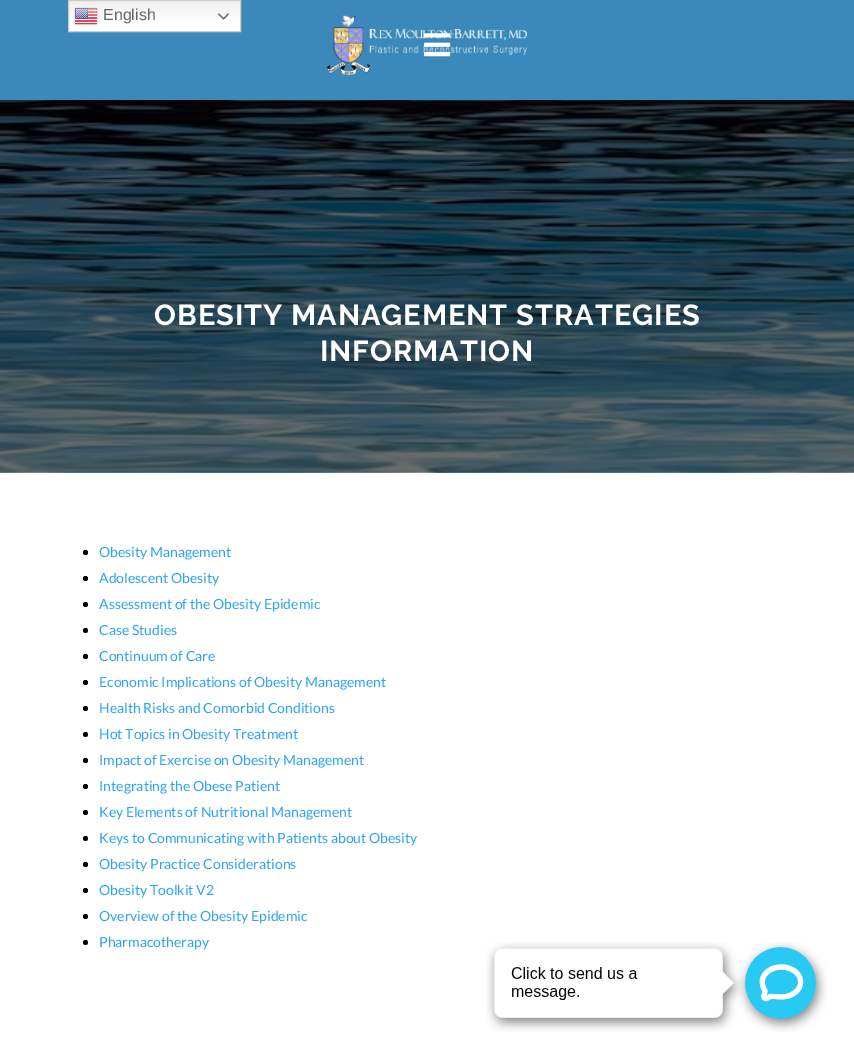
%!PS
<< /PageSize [854 1047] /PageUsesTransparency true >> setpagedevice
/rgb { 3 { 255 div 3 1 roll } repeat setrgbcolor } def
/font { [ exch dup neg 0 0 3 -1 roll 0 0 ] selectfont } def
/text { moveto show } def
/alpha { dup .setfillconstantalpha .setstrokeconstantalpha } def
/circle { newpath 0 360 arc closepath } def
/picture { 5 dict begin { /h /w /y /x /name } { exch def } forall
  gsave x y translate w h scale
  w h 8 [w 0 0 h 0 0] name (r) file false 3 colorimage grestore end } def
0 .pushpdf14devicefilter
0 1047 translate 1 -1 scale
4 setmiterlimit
255 255 255 rgb
0 0 854 1047 rectfill
59 137 186 rgb
0 0 854 100 rectfill
gsave 69 1 moveto 171 0 rlineto 0 30 rlineto -171 0 rlineto closepath clip newpath
<< /ShadingType 2 /ColorSpace /DeviceRGB /Coords [155 0 155 32] /Extend [true true] /Function << /FunctionType 3 /Domain [0 1] /Functions [<< /FunctionType 2 /Domain [0 1] /C0 [0.937 0.937 0.937] /C1 [1 1 1] /N 1 >> << /FunctionType 2 /Domain [0 1] /C0 [1 1 1] /C1 [1 1 1] /N 1 >>] /Bounds [0.7] /Encode [0 1 0 1] >> >> shfill grestore
204 204 204 rgb
68.5 0.5 172 31 rectstroke
(img_01.rgb) 74 7 24 19 picture
(img_02.rgb) 218 13 11 7 picture
(img_05.rgb) 0 100 854 373 picture
0.1 alpha
0 0 0 rgb
0 100 854 1 rectfill
1 alpha
(img_03.rgb) 327 15 200 61 picture
(img_04.rgb) 424 33 27 24 picture
85.5 552.5 2.5 circle fill
85.5 578.5 2.5 circle fill
85.5 604.5 2.5 circle fill
85.5 630.5 2.5 circle fill
85.5 656.5 2.5 circle fill
85.5 682.5 2.5 circle fill
85.5 708.5 2.5 circle fill
85.5 734.5 2.5 circle fill
85.5 760.5 2.5 circle fill
85.5 786.5 2.5 circle fill
85.5 812.5 2.5 circle fill
85.5 838.5 2.5 circle fill
85.5 864.5 2.5 circle fill
85.5 890.5 2.5 circle fill
85.5 916.5 2.5 circle fill
85.5 942.5 2.5 circle fill
(img_06.rgb) 486 942 341 90 picture
/LiberationSans-Regular 16 font
102 102 102 rgb
(English) 103 20 text
/Raleway-Bold 29 font
255 255 255 rgb
154 325 moveto 1 0 (OBESITY MANAGEMENT STRATEGIES) ashow
320 361 moveto 1 0 (INFORMATION) ashow
/Lato-Regular 14 font
46 163 242 rgb
(Obesity Management) 99 557 text
(Adolescent Obesity) 99 583 text
(Assessment of the Obesity Epidemic) 99 609 text
(Case Studies) 99 635 text
(Continuum of Care) 99 661 text
(Economic Implications of Obesity Management) 99 687 text
(Health Risks and Comorbid Conditions) 99 713 text
(Hot Topics in Obesity Treatment) 99 739 text
(Impact of Exercise on Obesity Management) 99 765 text
(Integrating the Obese Patient) 99 791 text
(Key Elements of Nutritional Management) 99 817 text
(Keys to Communicating with Patients about Obesity) 99 843 text
(Obesity Practice Considerations) 99 869 text
(Obesity Toolkit V2) 99 895 text
(Overview of the Obesity Epidemic) 99 921 text
(Pharmacotherapy) 99 947 text
.poppdf14devicefilter showpage
